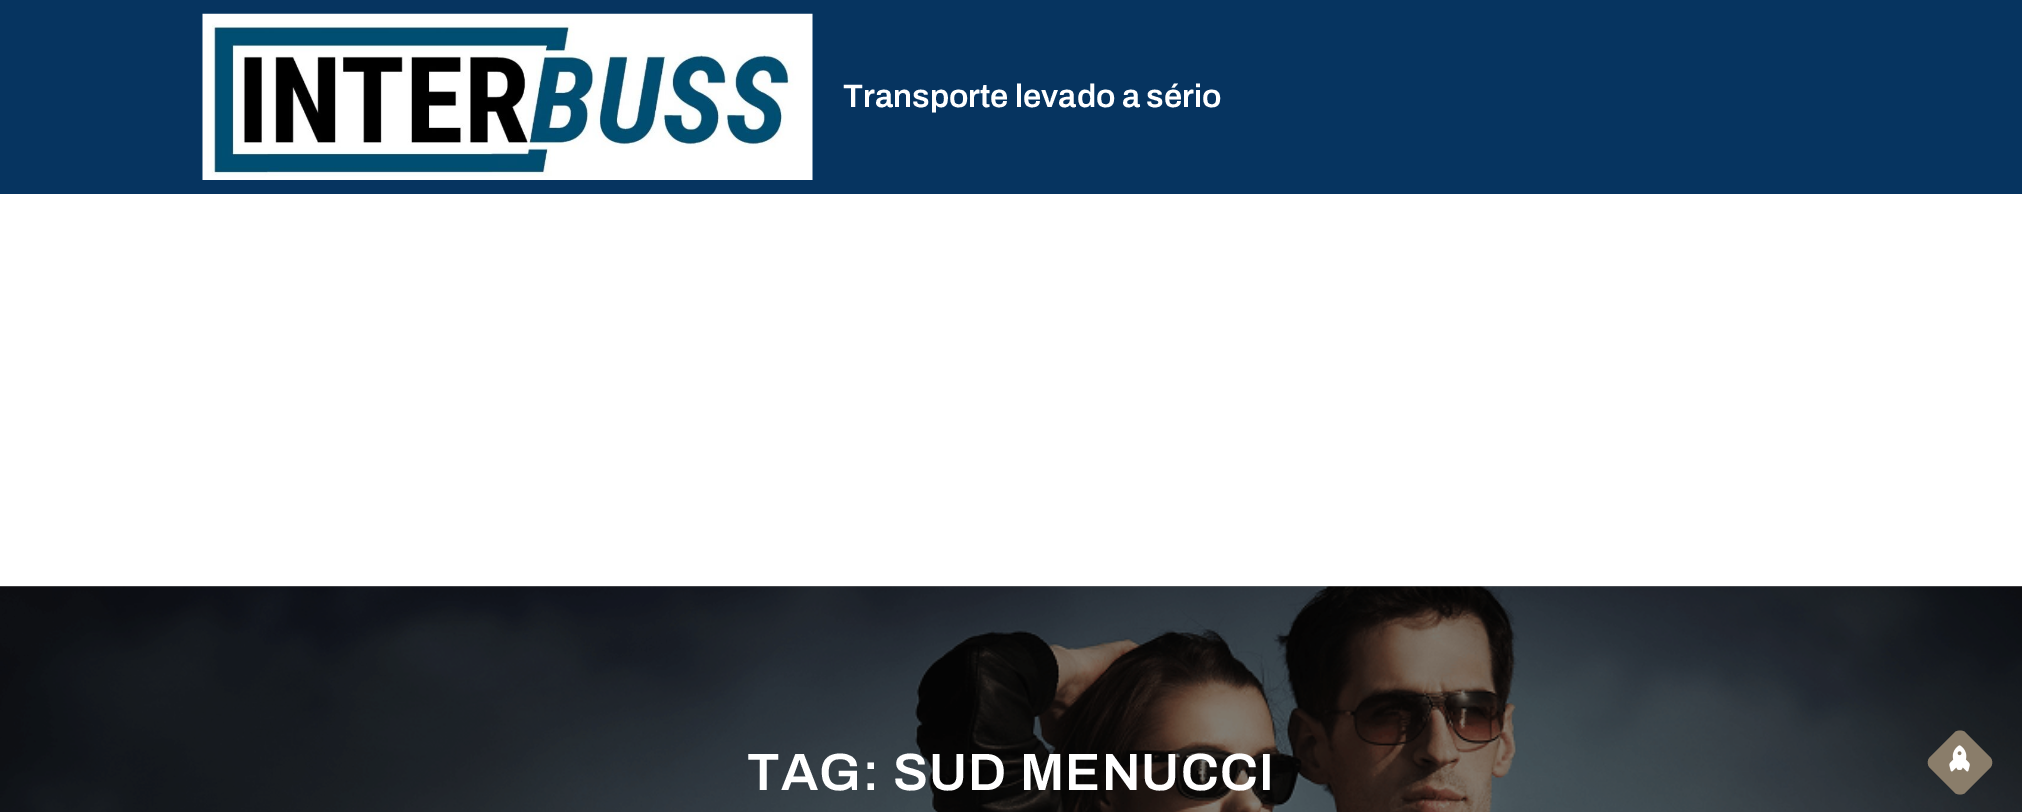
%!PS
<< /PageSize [2022 812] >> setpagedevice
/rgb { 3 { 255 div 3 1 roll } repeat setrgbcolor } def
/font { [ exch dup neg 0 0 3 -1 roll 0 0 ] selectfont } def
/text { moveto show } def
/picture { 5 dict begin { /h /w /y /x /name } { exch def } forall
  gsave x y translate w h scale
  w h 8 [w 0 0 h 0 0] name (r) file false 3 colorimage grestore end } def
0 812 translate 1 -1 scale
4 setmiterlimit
255 255 255 rgb
0 0 2022 812 rectfill
128 128 128 rgb
0 586 2022 1 rectfill
6 52 96 rgb
0 0 2022 194 rectfill
(img_01.rgb) 202 13 611 167 picture
(img_02.rgb) 0 586 2022 226 picture
138 125 106 rgb
1930 757 moveto 25 -25 rlineto 3 -2 7 -2 10 0 rcurveto 25 25 rlineto 3 3 3 8 0 11 rcurveto -25 25 rlineto -3 2 -7 2 -10 0 rcurveto -25 -25 rlineto -3 -3 -3 -8 0 -11 rcurveto closepath fill
(img_03.rgb) 1949 745 21 27 picture
/Archivo-SemiBold 32.5 font
255 255 255 rgb
(Transporte levado a sério) 843 107 text
/Archivo-SemiBold 52.5 font
747 790 moveto 1.25 0 (TAG: SUD MENUCCI) ashow
showpage
